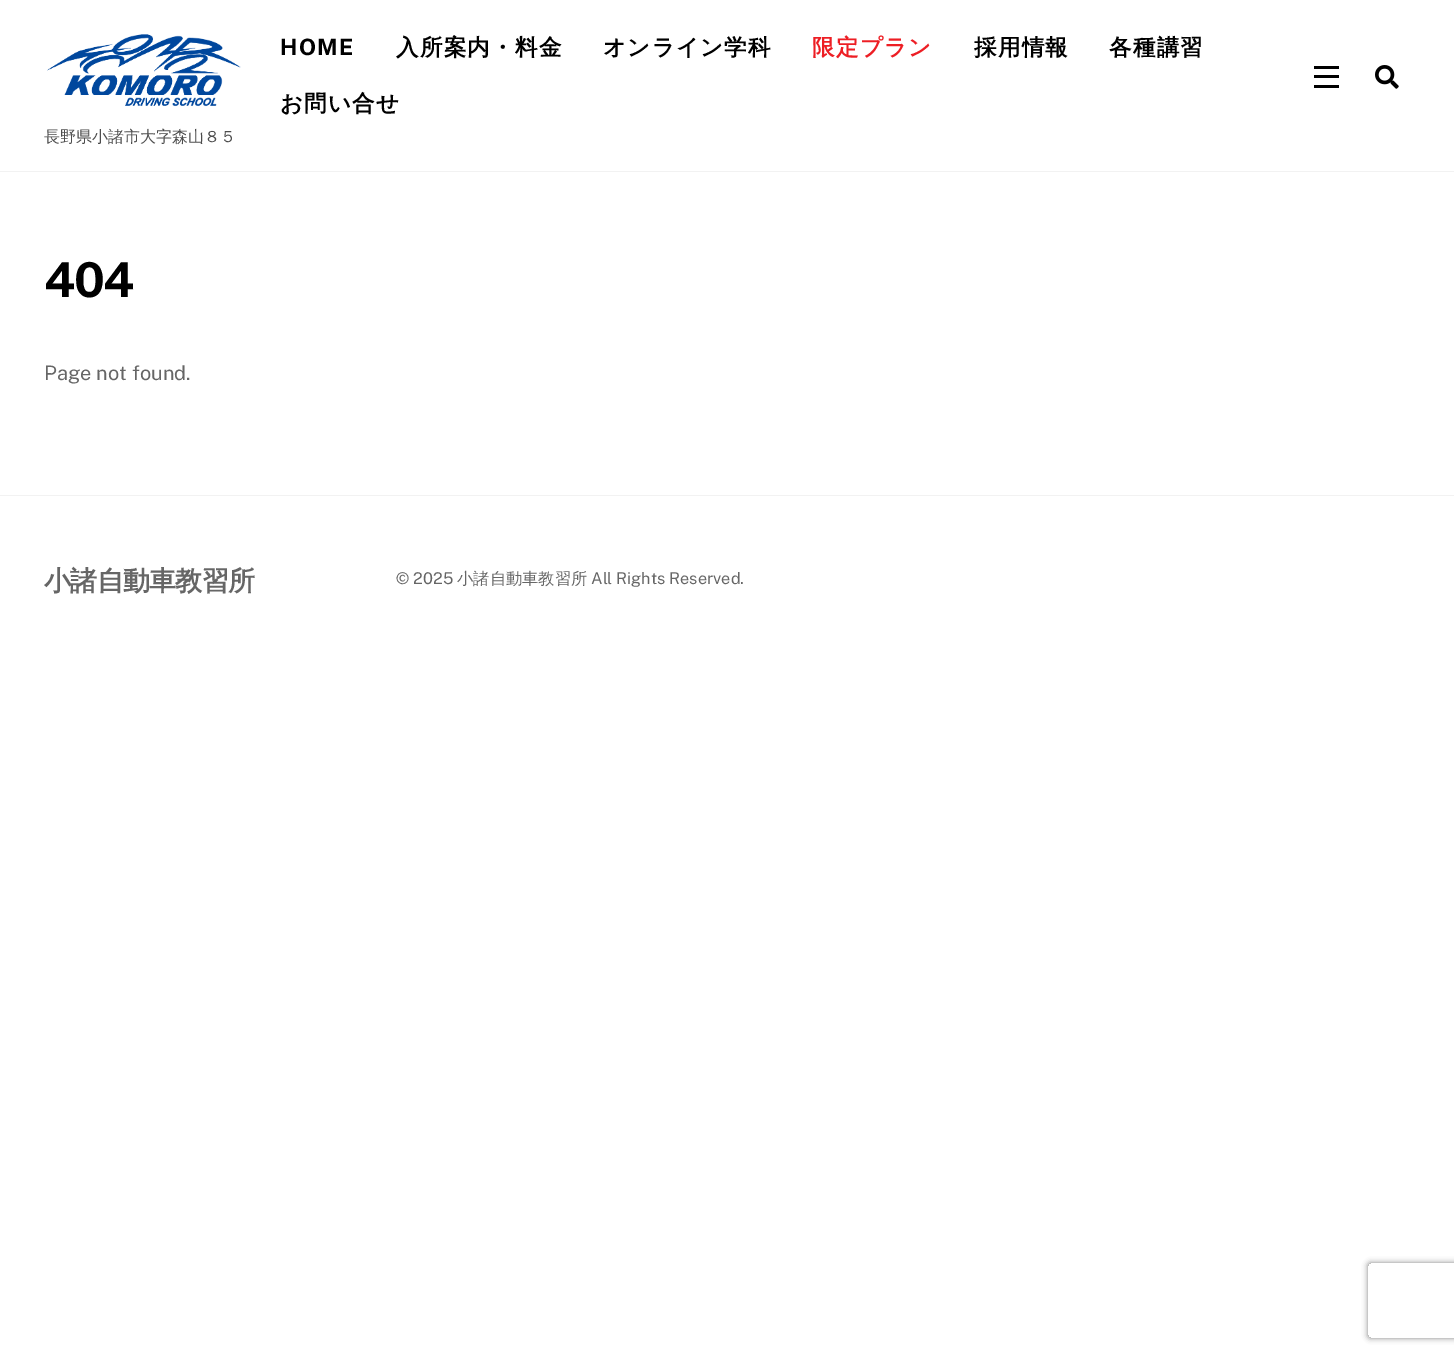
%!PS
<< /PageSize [1454 1355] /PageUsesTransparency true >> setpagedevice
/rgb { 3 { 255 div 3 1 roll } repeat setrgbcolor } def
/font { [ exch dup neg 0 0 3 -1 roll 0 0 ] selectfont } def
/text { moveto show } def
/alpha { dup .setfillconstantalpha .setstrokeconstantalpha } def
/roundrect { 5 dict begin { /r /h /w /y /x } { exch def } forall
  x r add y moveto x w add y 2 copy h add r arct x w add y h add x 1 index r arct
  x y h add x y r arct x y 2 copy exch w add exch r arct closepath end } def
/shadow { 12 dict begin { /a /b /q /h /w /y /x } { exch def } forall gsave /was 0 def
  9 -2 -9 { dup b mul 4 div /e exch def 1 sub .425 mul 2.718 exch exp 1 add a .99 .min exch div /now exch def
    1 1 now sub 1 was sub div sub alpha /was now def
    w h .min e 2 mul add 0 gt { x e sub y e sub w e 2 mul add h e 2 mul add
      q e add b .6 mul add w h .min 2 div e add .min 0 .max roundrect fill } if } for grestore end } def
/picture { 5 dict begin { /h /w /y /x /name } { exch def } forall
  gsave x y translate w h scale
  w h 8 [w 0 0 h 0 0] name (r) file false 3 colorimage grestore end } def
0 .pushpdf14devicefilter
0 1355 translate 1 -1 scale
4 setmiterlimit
255 255 255 rgb
0 0 1454 1355 rectfill
242 242 242 rgb
0 171 1454 1 rectfill
0 0 0 rgb
1314 85 25 3 rectfill
1314 66 25 3 rectfill
1314 75 25 3 rectfill
(img_01.rgb) 1375 65 24 24 picture
(img_02.rgb) 47 34 194 73 picture
242 242 242 rgb
0 495 1454 1 rectfill
gsave
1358 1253 moveto 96 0 rlineto 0 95 rlineto -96 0 rlineto closepath 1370.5 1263 moveto 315 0 rlineto 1.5 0 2.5 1 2.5 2.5 rcurveto 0 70 rlineto 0 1.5 -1 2.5 -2.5 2.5 rcurveto -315 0 rlineto -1.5 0 -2.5 -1 -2.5 -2.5 rcurveto 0 -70 rlineto 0 -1.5 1 -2.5 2.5 -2.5 rcurveto closepath eoclip newpath
128 128 128 rgb
1368 1263 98 75 2.5 3 1 shadow
grestore
/PublicSans-Bold 22.5 font
0 0 0 rgb
280 55 moveto 1.25 0 (HOME) ashow
/WenQuanYiZenHei-Bold 22.5 font
396 55 moveto 1.25 0 (入所案内・料金) ashow
603 55 moveto 1.25 0 (オンライン学科) ashow
237 30 36 rgb
812 55 moveto 1.25 0 (限定プラン) ashow
0 0 0 rgb
974 55 moveto 1.25 0 (採用情報) ashow
1109 55 moveto 1.25 0 (各種講習) ashow
280 111 moveto 1.25 0 (お問い合せ) ashow
/WenQuanYiZenHei-Medium 16 font
77 77 77 rgb
(長野県小諸市大字森山８５) 44 142 text
/PublicSans-Bold 48 font
0 0 0 rgb
44 297 moveto -1.5 0 (404) ashow
/PublicSans-Regular 20 font
102 102 102 rgb
(Page not found.) 44 380 text
/WenQuanYiZenHei-Bold 27 font
44 590 moveto -0.75 0 (小諸自動車教習所) ashow
/PublicSans-Regular 16.25 font
(© 2025) 396 584 text
/WenQuanYiZenHei-Medium 16.25 font
(小諸自動車教習所) 457 584 text
/PublicSans-Regular 16.25 font
(All Rights Reserved.) 591 584 text
.poppdf14devicefilter showpage
